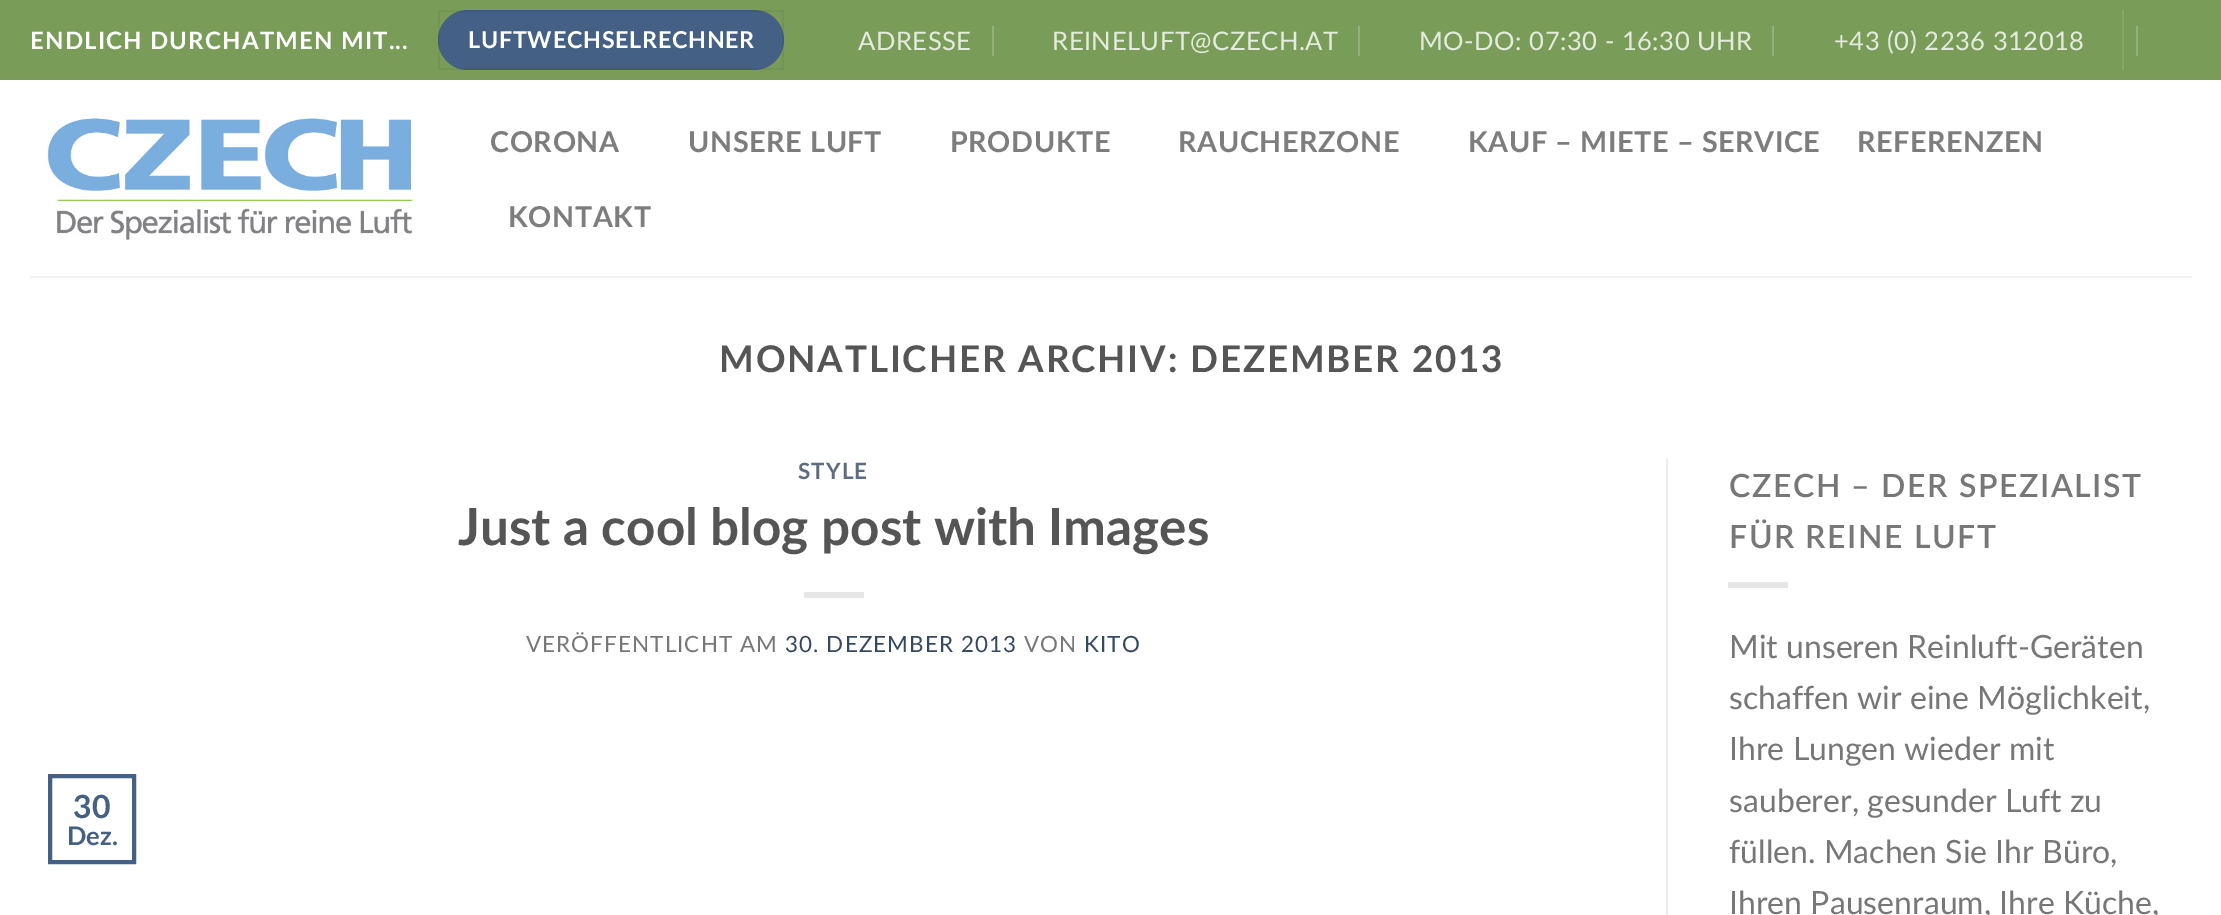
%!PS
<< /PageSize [2221 915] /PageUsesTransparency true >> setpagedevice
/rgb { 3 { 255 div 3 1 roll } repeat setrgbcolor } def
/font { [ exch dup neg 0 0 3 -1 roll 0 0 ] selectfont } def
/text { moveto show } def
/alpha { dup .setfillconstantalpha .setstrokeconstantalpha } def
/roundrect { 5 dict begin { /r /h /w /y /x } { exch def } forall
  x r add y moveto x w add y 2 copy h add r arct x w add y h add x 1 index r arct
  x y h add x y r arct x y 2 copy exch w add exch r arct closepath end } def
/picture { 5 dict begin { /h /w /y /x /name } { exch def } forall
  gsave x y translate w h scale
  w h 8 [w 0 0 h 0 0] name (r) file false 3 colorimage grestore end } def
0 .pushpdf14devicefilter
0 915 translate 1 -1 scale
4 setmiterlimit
255 255 255 rgb
0 0 2221 915 rectfill
122 156 89 rgb
0 0 2221 80 rectfill
68 96 132 rgb
438 10 346 60 30 roundrect fill
0.05 alpha
0 0 0 rgb
2 setlinewidth
439 11 344 58 rectstroke
1 alpha
149 176 122 rgb
992 26 2 30 rectfill
1358 26 2 30 rectfill
1772 26 2 30 rectfill
135 166 106 rgb
2122 10 2 60 rectfill
149 176 122 rgb
2136 26 2 30 rectfill
(img_01.rgb) 45 115 371 125 picture
241 241 241 rgb
30 276 2162 2 rectfill
230 230 230 rgb
804 592 60 6 rectfill
68 96 132 rgb
4 setlinewidth
50 776 84 86 rectstroke
236 236 236 rgb
1666 458 2 457 rectfill
230 230 230 rgb
1728 582 60 6 rectfill
/Lato-Bold 24 font
255 255 255 rgb
30 49 moveto 1.2 0 (ENDLICH DURCHATMEN MIT...) ashow
/Lato-Bold 23.25 font
468 48 moveto 0.75 0 (LUFTWECHSELRECHNER) ashow
/Lato-Regular 25.6 font
228 235 222 rgb
858 50 moveto 0.5 0 (ADRESSE) ashow
1052 50 moveto 0.5 0 (REINELUFT@CZECH.AT) ashow
1419 50 moveto 0.5 0 (MO-DO: 07:30 - 16:30 UHR) ashow
1834 50 moveto 0.5 0 (+43 \(0\) 2236 312018) ashow
/Lato-Bold 28.75 font
125 125 125 rgb
490 152 moveto 0.6 0 (CORONA) ashow
688 152 moveto 0.6 0 (UNSERE LUFT) ashow
950 152 moveto 0.6 0 (PRODUKTE) ashow
1178 152 moveto 0.6 0 (RAUCHERZONE) ashow
1468 152 moveto 0.6 0 (KAUF – MIETE – SERVICE) ashow
1857 152 moveto 0.6 0 (REFERENZEN) ashow
508 227 moveto 0.6 0 (KONTAKT) ashow
/Lato-Bold 36.8 font
85 85 85 rgb
719 372 moveto 1.85 0 (MONATLICHER ARCHIV: DEZEMBER 2013) ashow
/Lato-Bold 22.4 font
92 109 129 rgb
798 479 moveto 1.1 0 (STYLE) ashow
/Lato-Bold 51.25 font
85 85 85 rgb
(Just a cool blog post with Images) 458 545 text
/Lato-Regular 22.4 font
119 119 119 rgb
526 652 moveto 1.1 0 (VERÖFFENTLICHT AM) ashow
51 72 98 rgb
785 652 moveto 1.1 0 (30. DEZEMBER 2013) ashow
119 119 119 rgb
1024 652 moveto 1.1 0 (VON) ashow
51 72 98 rgb
1084 652 moveto 1.1 0 (KITO) ashow
/Lato-Bold 32 font
68 96 132 rgb
(30) 73 818 text
/Lato-Bold 25.6 font
(Dez.) 67 845 text
/Lato-SemiBold 32 font
119 119 119 rgb
1729 497 moveto 1.6 0 (CZECH – DER SPEZIALIST) ashow
1729 548 moveto 1.6 0 (FÜR REINE LUFT) ashow
/Lato-Regular 32 font
(Mit unseren Reinluft-Geräten) 1729 658 text
(schaffen wir eine Möglichkeit,) 1729 709 text
(Ihre Lungen wieder mit) 1729 760 text
(sauberer, gesunder Luft zu) 1729 812 text
(füllen. Machen Sie Ihr Büro,) 1729 863 text
(Ihren Pausenraum, Ihre Küche,) 1729 914 text
.poppdf14devicefilter showpage
